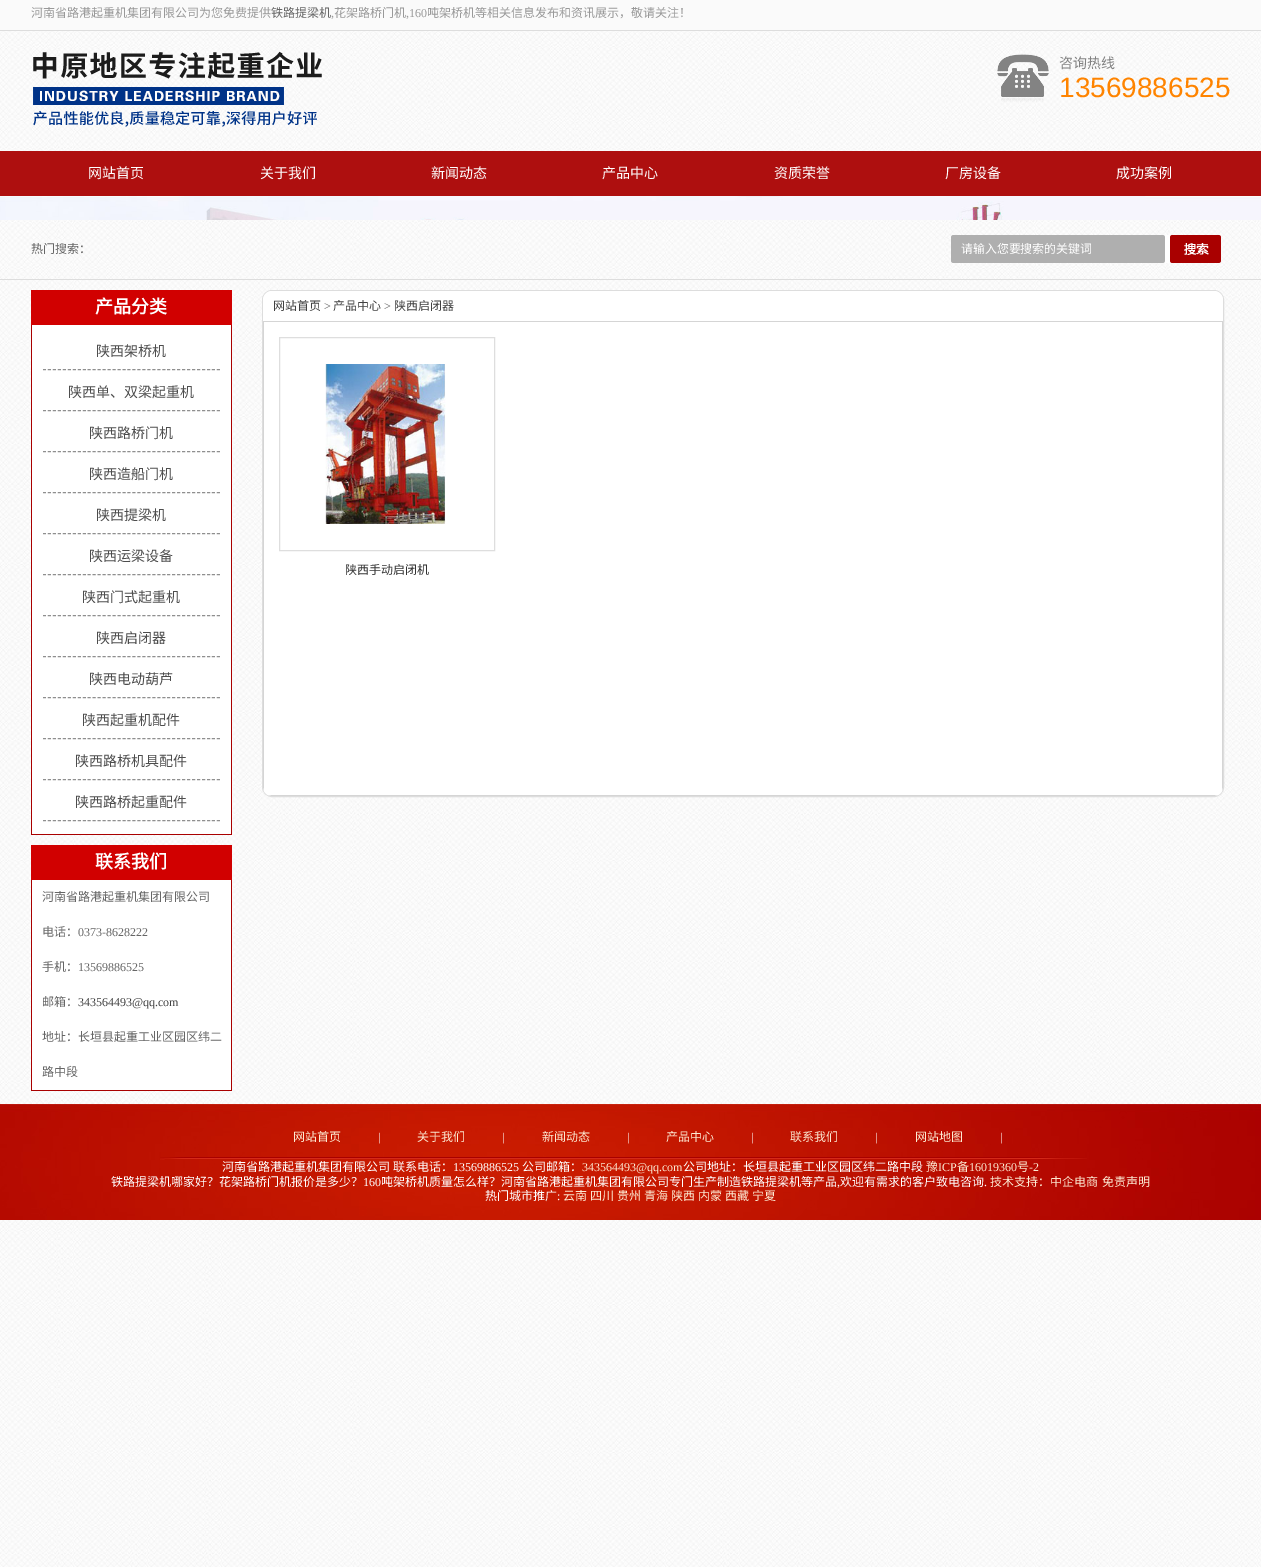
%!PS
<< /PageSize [1261 1567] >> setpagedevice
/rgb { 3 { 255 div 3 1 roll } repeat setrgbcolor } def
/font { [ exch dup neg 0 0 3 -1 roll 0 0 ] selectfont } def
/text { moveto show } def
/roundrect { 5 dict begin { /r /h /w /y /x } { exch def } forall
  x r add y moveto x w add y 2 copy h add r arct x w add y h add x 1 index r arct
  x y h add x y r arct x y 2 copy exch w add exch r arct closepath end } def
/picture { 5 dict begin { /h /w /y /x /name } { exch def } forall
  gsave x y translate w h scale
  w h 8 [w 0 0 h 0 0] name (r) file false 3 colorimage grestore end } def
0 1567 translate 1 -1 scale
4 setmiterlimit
255 255 255 rgb
0 0 1261 1567 rectfill
(img_01.rgb) 0 31 1261 1536 picture
250 250 250 rgb
0 0 1261 30 rectfill
221 221 221 rgb
0 30 1261 1 rectfill
(img_02.rgb) 33 51 289 76 picture
(img_03.rgb) 997 54 52 48 picture
174 15 15 rgb
0 151 1261 45 rectfill
(img_04.rgb) 0 196 1261 24 picture
221 221 221 rgb
0 279 1261 1 rectfill
(img_05.rgb) 951 235 270 28 picture
209 0 0 rgb
31 290 201 35 rectfill
255 255 255 rgb
32 325 199 509 rectfill
169 0 0 rgb
231 325 1 510 rectfill
31 834 201 1 rectfill
31 325 1 510 rectfill
143 143 143 rgb
[3 1.97] 0 setdash
43 369.5 moveto 177 0 rlineto stroke
43 410.5 moveto 177 0 rlineto stroke
43 451.5 moveto 177 0 rlineto stroke
43 492.5 moveto 177 0 rlineto stroke
43 533.5 moveto 177 0 rlineto stroke
43 574.5 moveto 177 0 rlineto stroke
43 615.5 moveto 177 0 rlineto stroke
43 656.5 moveto 177 0 rlineto stroke
43 697.5 moveto 177 0 rlineto stroke
43 738.5 moveto 177 0 rlineto stroke
43 779.5 moveto 177 0 rlineto stroke
43 820.5 moveto 177 0 rlineto stroke
209 0 0 rgb
31 845 201 35 rectfill
255 255 255 rgb
32 880 199 210 rectfill
169 0 0 rgb
231 880 1 211 rectfill
31 1090 201 1 rectfill
31 880 1 211 rectfill
221 221 221 rgb
[] 0 setdash
262.5 290.5 961 506 9.5 roundrect stroke
255 255 255 rgb
272 291 moveto 942 0 rlineto 5 0 9 4 9 9 rcurveto 0 21 rlineto -960 0 rlineto 0 -21 rlineto 0 -5 4 -9 9 -9 rcurveto closepath fill
263 321 moveto 960 0 rlineto 0 466 rlineto 0 5 -4 9 -9 9 rcurveto -942 0 rlineto -5 0 -9 -4 -9 -9 rcurveto closepath fill
213 213 213 rgb
264 322 moveto 958 0 rlineto 0 469 rlineto 1 -4 rlineto 0 -466 rlineto -960 0 rlineto 0 466 rlineto 1 4 rlineto closepath 1214 796 moveto 4 -1 rlineto -950 0 rlineto 4 1 rlineto closepath eofill
222 222 222 rgb
279.5 337.5 215 213 rectstroke
(img_06.rgb) 325 364 121 160 picture
(img_07.rgb) 0 1104 1261 116 picture
(img_08.rgb) 160 1157 927 3 picture
/NotoSansCJKSC-Regular 12 font
153 153 153 rgb
(河南省路港起重机集团有限公司为您免费提供) 31 17 text
102 102 102 rgb
(铁路提梁机) 271 17 text
/LiberationSerif-Regular 12 font
153 153 153 rgb
(,) 331 17 text
/NotoSansCJKSC-Regular 12 font
(花架路桥门机) 334 17 text
/LiberationSerif-Regular 12 font
(,160) 406 17 text
/NotoSansCJKSC-Regular 12 font
(吨架桥机等相关信息发布和资讯展示，敬请关注！) 427 17 text
/NotoSansCJKSC-Regular 14 font
129 129 129 rgb
(咨询热线) 1059 68 text
/LiberationSans-Regular 28 font
255 132 0 rgb
(13569886525) 1059 97 text
/NotoSansCJKSC-Regular 14 font
255 255 255 rgb
(网站首页) 88 178 text
(关于我们) 260 178 text
(新闻动态) 431 178 text
(产品中心) 602 178 text
(资质荣誉) 774 178 text
(厂房设备) 945 178 text
(成功案例) 1116 178 text
/NotoSansCJKSC-Regular 12 font
102 102 102 rgb
(热门搜索：) 31 253 text
/NotoSansCJKSC-Regular 11.9 font
255 255 255 rgb
(请输入您要搜索的关键词) 961 253 text
/NotoSansCJKSC-Bold 18 font
(产品分类) 95 313 text
/NotoSansCJKSC-Regular 14 font
77 77 77 rgb
(陕西架桥机) 96 356 text
(陕西单、双梁起重机) 68 397 text
(陕西路桥门机) 89 438 text
(陕西造船门机) 89 479 text
(陕西提梁机) 96 520 text
(陕西运梁设备) 89 561 text
(陕西门式起重机) 82 602 text
(陕西启闭器) 96 643 text
(陕西电动葫芦) 89 684 text
(陕西起重机配件) 82 725 text
(陕西路桥机具配件) 75 766 text
(陕西路桥起重配件) 75 807 text
/NotoSansCJKSC-Bold 18 font
255 255 255 rgb
(联系我们) 95 868 text
/NotoSansCJKSC-Regular 12 font
102 102 102 rgb
(河南省路港起重机集团有限公司) 42 901 text
(电话：) 42 936 text
/LiberationSerif-Regular 12 font
(0373-8628222) 78 936 text
/NotoSansCJKSC-Regular 12 font
(手机：) 42 971 text
/LiberationSerif-Regular 12 font
(13569886525) 78 971 text
/NotoSansCJKSC-Regular 12 font
(邮箱：) 42 1006 text
/LiberationSerif-Regular 12 font
65 65 65 rgb
(343564493@qq.com) 78 1006 text
/NotoSansCJKSC-Regular 12 font
102 102 102 rgb
(地址：长垣县起重工业区园区纬二) 42 1041 text
(路中段) 42 1076 text
65 65 65 rgb
(网站首页) 273 310 text
/LiberationSerif-Regular 12 font
102 102 102 rgb
(>) 324 310 text
/NotoSansCJKSC-Regular 12 font
65 65 65 rgb
(产品中心) 333 310 text
/LiberationSerif-Regular 12 font
102 102 102 rgb
(>) 384 310 text
/NotoSansCJKSC-Regular 12 font
65 65 65 rgb
(陕西启闭器) 394 310 text
51 51 51 rgb
(陕西手动启闭机) 345 574 text
253 233 210 rgb
(网站首页) 293 1141 text
/LiberationSerif-Regular 12 font
255 255 255 rgb
(|) 378 1141 text
/NotoSansCJKSC-Regular 12 font
253 233 210 rgb
(关于我们) 417 1141 text
/LiberationSerif-Regular 12 font
255 255 255 rgb
(|) 502 1141 text
/NotoSansCJKSC-Regular 12 font
253 233 210 rgb
(新闻动态) 542 1141 text
/LiberationSerif-Regular 12 font
255 255 255 rgb
(|) 627 1141 text
/NotoSansCJKSC-Regular 12 font
253 233 210 rgb
(产品中心) 666 1141 text
/LiberationSerif-Regular 12 font
255 255 255 rgb
(|) 751 1141 text
/NotoSansCJKSC-Regular 12 font
253 233 210 rgb
(联系我们) 790 1141 text
/LiberationSerif-Regular 12 font
255 255 255 rgb
(|) 875 1141 text
/NotoSansCJKSC-Regular 12 font
253 233 210 rgb
(网站地图) 915 1141 text
/LiberationSerif-Regular 12 font
255 255 255 rgb
(|) 1000 1141 text
/NotoSansCJKSC-Regular 12 font
(河南省路港起重机集团有限公司) 222 1171 text
(联系电话：) 393 1171 text
/LiberationSerif-Regular 12 font
(13569886525) 453 1171 text
/NotoSansCJKSC-Regular 12 font
(公司邮箱：) 522 1171 text
/LiberationSerif-Regular 12 font
253 233 210 rgb
(343564493@qq.com) 582 1171 text
/NotoSansCJKSC-Regular 12 font
255 255 255 rgb
(公司地址：长垣县起重工业区园区纬二路中段) 683 1171 text
253 233 210 rgb
(豫) 926 1171 text
/LiberationSerif-Regular 12 font
(ICP) 938 1171 text
/NotoSansCJKSC-Regular 12 font
(备) 957 1171 text
/LiberationSerif-Regular 12 font
(16019360) 969 1171 text
/NotoSansCJKSC-Regular 12 font
(号) 1017 1171 text
/LiberationSerif-Regular 12 font
(-2) 1029 1171 text
/NotoSansCJKSC-Regular 12 font
255 255 255 rgb
(铁路提梁机哪家好？花架路桥门机报价是多少？) 111 1186 text
/LiberationSerif-Regular 12 font
(160) 363 1186 text
/NotoSansCJKSC-Regular 12 font
(吨架桥机质量怎么样？河南省路港起重机集团有限公司专门生产制造铁路提梁机等产品) 381 1186 text
/LiberationSerif-Regular 12 font
(,) 837 1186 text
/NotoSansCJKSC-Regular 12 font
(欢迎有需求的客户致电咨询) 840 1186 text
/LiberationSerif-Regular 12 font
(.) 984 1186 text
/NotoSansCJKSC-Regular 12 font
253 233 210 rgb
(技术支持：中企电商) 990 1186 text
(免责声明) 1102 1186 text
255 255 255 rgb
(热门城市推广) 485 1200 text
/LiberationSerif-Regular 12 font
(:) 557 1200 text
/NotoSansCJKSC-Regular 12 font
253 233 210 rgb
(云南) 563 1200 text
(四川) 590 1200 text
(贵州) 617 1200 text
(青海) 644 1200 text
(陕西) 671 1200 text
(内蒙) 698 1200 text
(西藏) 725 1200 text
(宁夏) 752 1200 text
showpage
